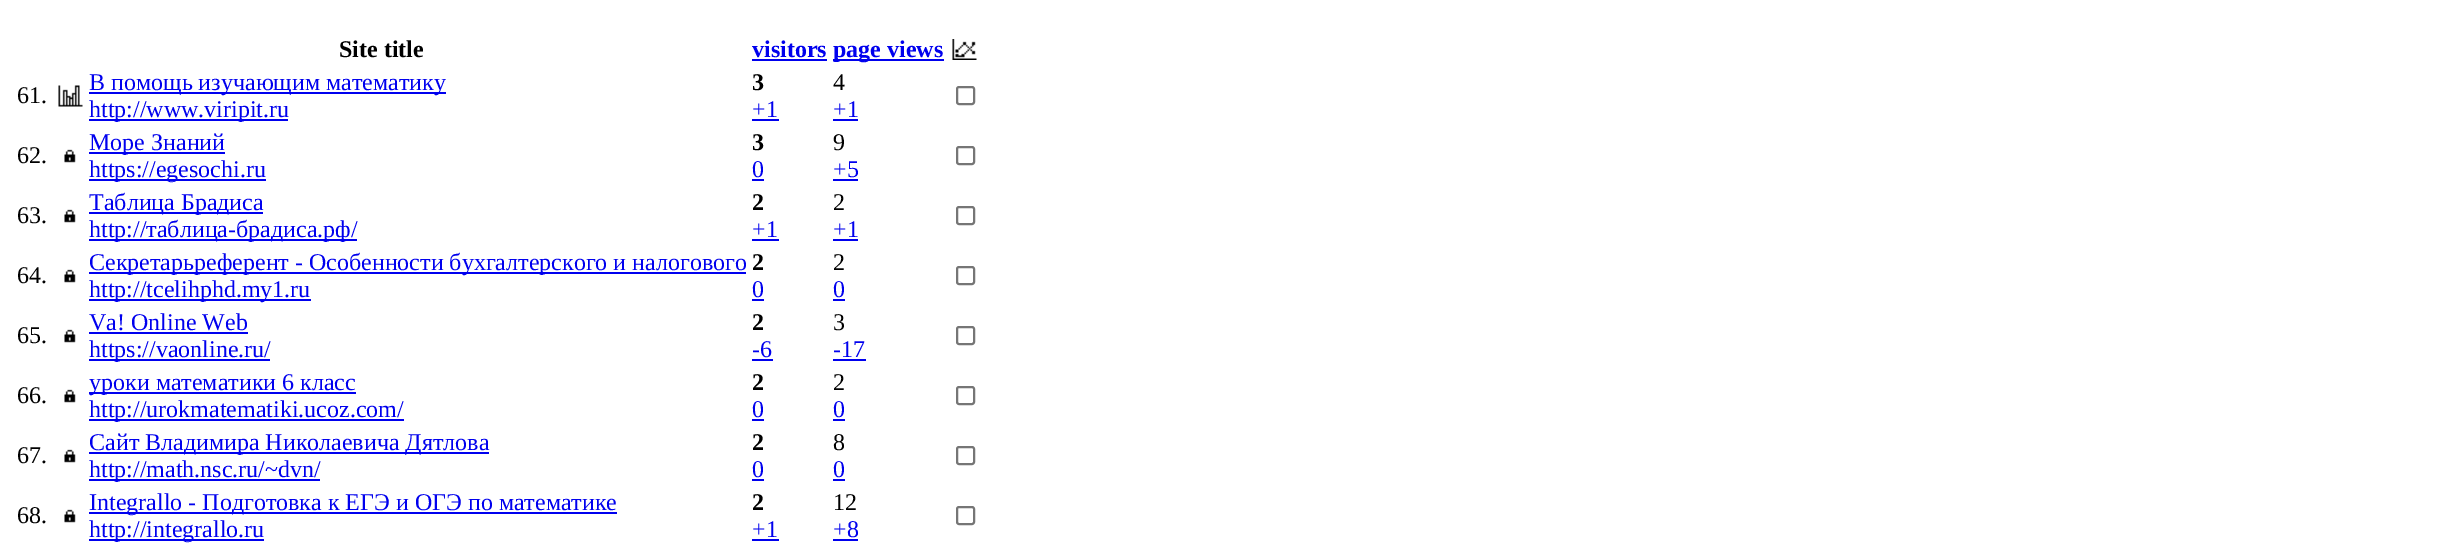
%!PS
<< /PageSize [2455 545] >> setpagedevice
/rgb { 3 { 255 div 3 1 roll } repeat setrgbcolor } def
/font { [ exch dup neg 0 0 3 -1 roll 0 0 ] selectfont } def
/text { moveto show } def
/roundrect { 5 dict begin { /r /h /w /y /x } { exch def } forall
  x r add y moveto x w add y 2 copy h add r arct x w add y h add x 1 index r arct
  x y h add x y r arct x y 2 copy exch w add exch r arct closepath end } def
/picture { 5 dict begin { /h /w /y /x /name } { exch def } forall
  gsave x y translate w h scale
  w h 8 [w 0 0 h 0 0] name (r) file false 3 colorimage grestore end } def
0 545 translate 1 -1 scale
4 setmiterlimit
255 255 255 rgb
0 0 2455 545 rectfill
0 0 238 rgb
752 59 75 2 rectfill
833 59 111 2 rectfill
(img_01.rgb) 952 39 25 21 picture
(img_02.rgb) 58 85 25 22 picture
89 92 357 2 rectfill
89 119 199 2 rectfill
752 119 27 2 rectfill
833 119 25 2 rectfill
118 118 118 rgb
2 setlinewidth
957 87 17 17 2 roundrect stroke
(img_03.rgb) 64 149 12 14 picture
0 0 238 rgb
89 152 136 2 rectfill
89 179 177 2 rectfill
752 179 12 2 rectfill
833 179 25 2 rectfill
118 118 118 rgb
957 147 17 17 2 roundrect stroke
(img_03.rgb) 64 209 12 14 picture
0 0 238 rgb
89 212 174 2 rectfill
89 239 268 2 rectfill
752 239 27 2 rectfill
833 239 25 2 rectfill
118 118 118 rgb
957 207 17 17 2 roundrect stroke
(img_03.rgb) 64 269 12 14 picture
0 0 238 rgb
89 272 657 2 rectfill
89 299 222 2 rectfill
752 299 12 2 rectfill
833 299 12 2 rectfill
118 118 118 rgb
957 267 17 17 2 roundrect stroke
(img_03.rgb) 64 329 12 14 picture
0 0 238 rgb
89 332 159 2 rectfill
89 359 181 2 rectfill
752 359 21 2 rectfill
833 359 33 2 rectfill
118 118 118 rgb
957 327 17 17 2 roundrect stroke
(img_03.rgb) 64 389 12 14 picture
0 0 238 rgb
89 392 267 2 rectfill
89 419 315 2 rectfill
752 419 12 2 rectfill
833 419 12 2 rectfill
118 118 118 rgb
957 387 17 17 2 roundrect stroke
(img_03.rgb) 64 449 12 14 picture
0 0 238 rgb
89 452 400 2 rectfill
89 479 231 2 rectfill
752 479 12 2 rectfill
833 479 12 2 rectfill
118 118 118 rgb
957 447 17 17 2 roundrect stroke
(img_03.rgb) 64 509 12 14 picture
0 0 238 rgb
89 512 528 2 rectfill
89 539 175 2 rectfill
752 539 27 2 rectfill
833 539 25 2 rectfill
118 118 118 rgb
957 507 17 17 2 roundrect stroke
/LiberationSerif-Bold 24 font
0 0 0 rgb
(Site title) 339 57 text
0 0 238 rgb
(visitors) 752 57 text
(page views) 833 57 text
/LiberationSerif-Regular 24 font
0 0 0 rgb
(61.) 17 103 text
0 0 238 rgb
(В помощь изучающим математику) 89 90 text
(http://www.viripit.ru) 89 117 text
/LiberationSerif-Bold 24 font
0 0 0 rgb
(3) 752 90 text
/LiberationSerif-Regular 24 font
0 0 238 rgb
(+1) 752 117 text
0 0 0 rgb
(4) 833 90 text
0 0 238 rgb
(+1) 833 117 text
0 0 0 rgb
(62.) 17 163 text
0 0 238 rgb
(Море Знаний) 89 150 text
(https://egesochi.ru) 89 177 text
/LiberationSerif-Bold 24 font
0 0 0 rgb
(3) 752 150 text
/LiberationSerif-Regular 24 font
0 0 238 rgb
(0) 752 177 text
0 0 0 rgb
(9) 833 150 text
0 0 238 rgb
(+5) 833 177 text
0 0 0 rgb
(63.) 17 223 text
0 0 238 rgb
(Таблица Брадиса) 89 210 text
(http://таблица-брадиса.рф/) 89 237 text
/LiberationSerif-Bold 24 font
0 0 0 rgb
(2) 752 210 text
/LiberationSerif-Regular 24 font
0 0 238 rgb
(+1) 752 237 text
0 0 0 rgb
(2) 833 210 text
0 0 238 rgb
(+1) 833 237 text
0 0 0 rgb
(64.) 17 283 text
0 0 238 rgb
(Секретарьреферент - Особенности бухгалтерского и налогового) 89 270 text
(http://tcelihphd.my1.ru) 89 297 text
/LiberationSerif-Bold 24 font
0 0 0 rgb
(2) 752 270 text
/LiberationSerif-Regular 24 font
0 0 238 rgb
(0) 752 297 text
0 0 0 rgb
(2) 833 270 text
0 0 238 rgb
(0) 833 297 text
0 0 0 rgb
(65.) 17 343 text
0 0 238 rgb
(Va! Online Web) 89 330 text
(https://vaonline.ru/) 89 357 text
/LiberationSerif-Bold 24 font
0 0 0 rgb
(2) 752 330 text
/LiberationSerif-Regular 24 font
0 0 238 rgb
(-6) 752 357 text
0 0 0 rgb
(3) 833 330 text
0 0 238 rgb
(-17) 833 357 text
0 0 0 rgb
(66.) 17 403 text
0 0 238 rgb
(уроки математики 6 класс) 89 390 text
(http://urokmatematiki.ucoz.com/) 89 417 text
/LiberationSerif-Bold 24 font
0 0 0 rgb
(2) 752 390 text
/LiberationSerif-Regular 24 font
0 0 238 rgb
(0) 752 417 text
0 0 0 rgb
(2) 833 390 text
0 0 238 rgb
(0) 833 417 text
0 0 0 rgb
(67.) 17 463 text
0 0 238 rgb
(Сайт Владимира Николаевича Дятлова) 89 450 text
(http://math.nsc.ru/~dvn/) 89 477 text
/LiberationSerif-Bold 24 font
0 0 0 rgb
(2) 752 450 text
/LiberationSerif-Regular 24 font
0 0 238 rgb
(0) 752 477 text
0 0 0 rgb
(8) 833 450 text
0 0 238 rgb
(0) 833 477 text
0 0 0 rgb
(68.) 17 523 text
0 0 238 rgb
(Integrallo - Подготовка к ЕГЭ и ОГЭ по математике) 89 510 text
(http://integrallo.ru) 89 537 text
/LiberationSerif-Bold 24 font
0 0 0 rgb
(2) 752 510 text
/LiberationSerif-Regular 24 font
0 0 238 rgb
(+1) 752 537 text
0 0 0 rgb
(12) 833 510 text
0 0 238 rgb
(+8) 833 537 text
showpage
